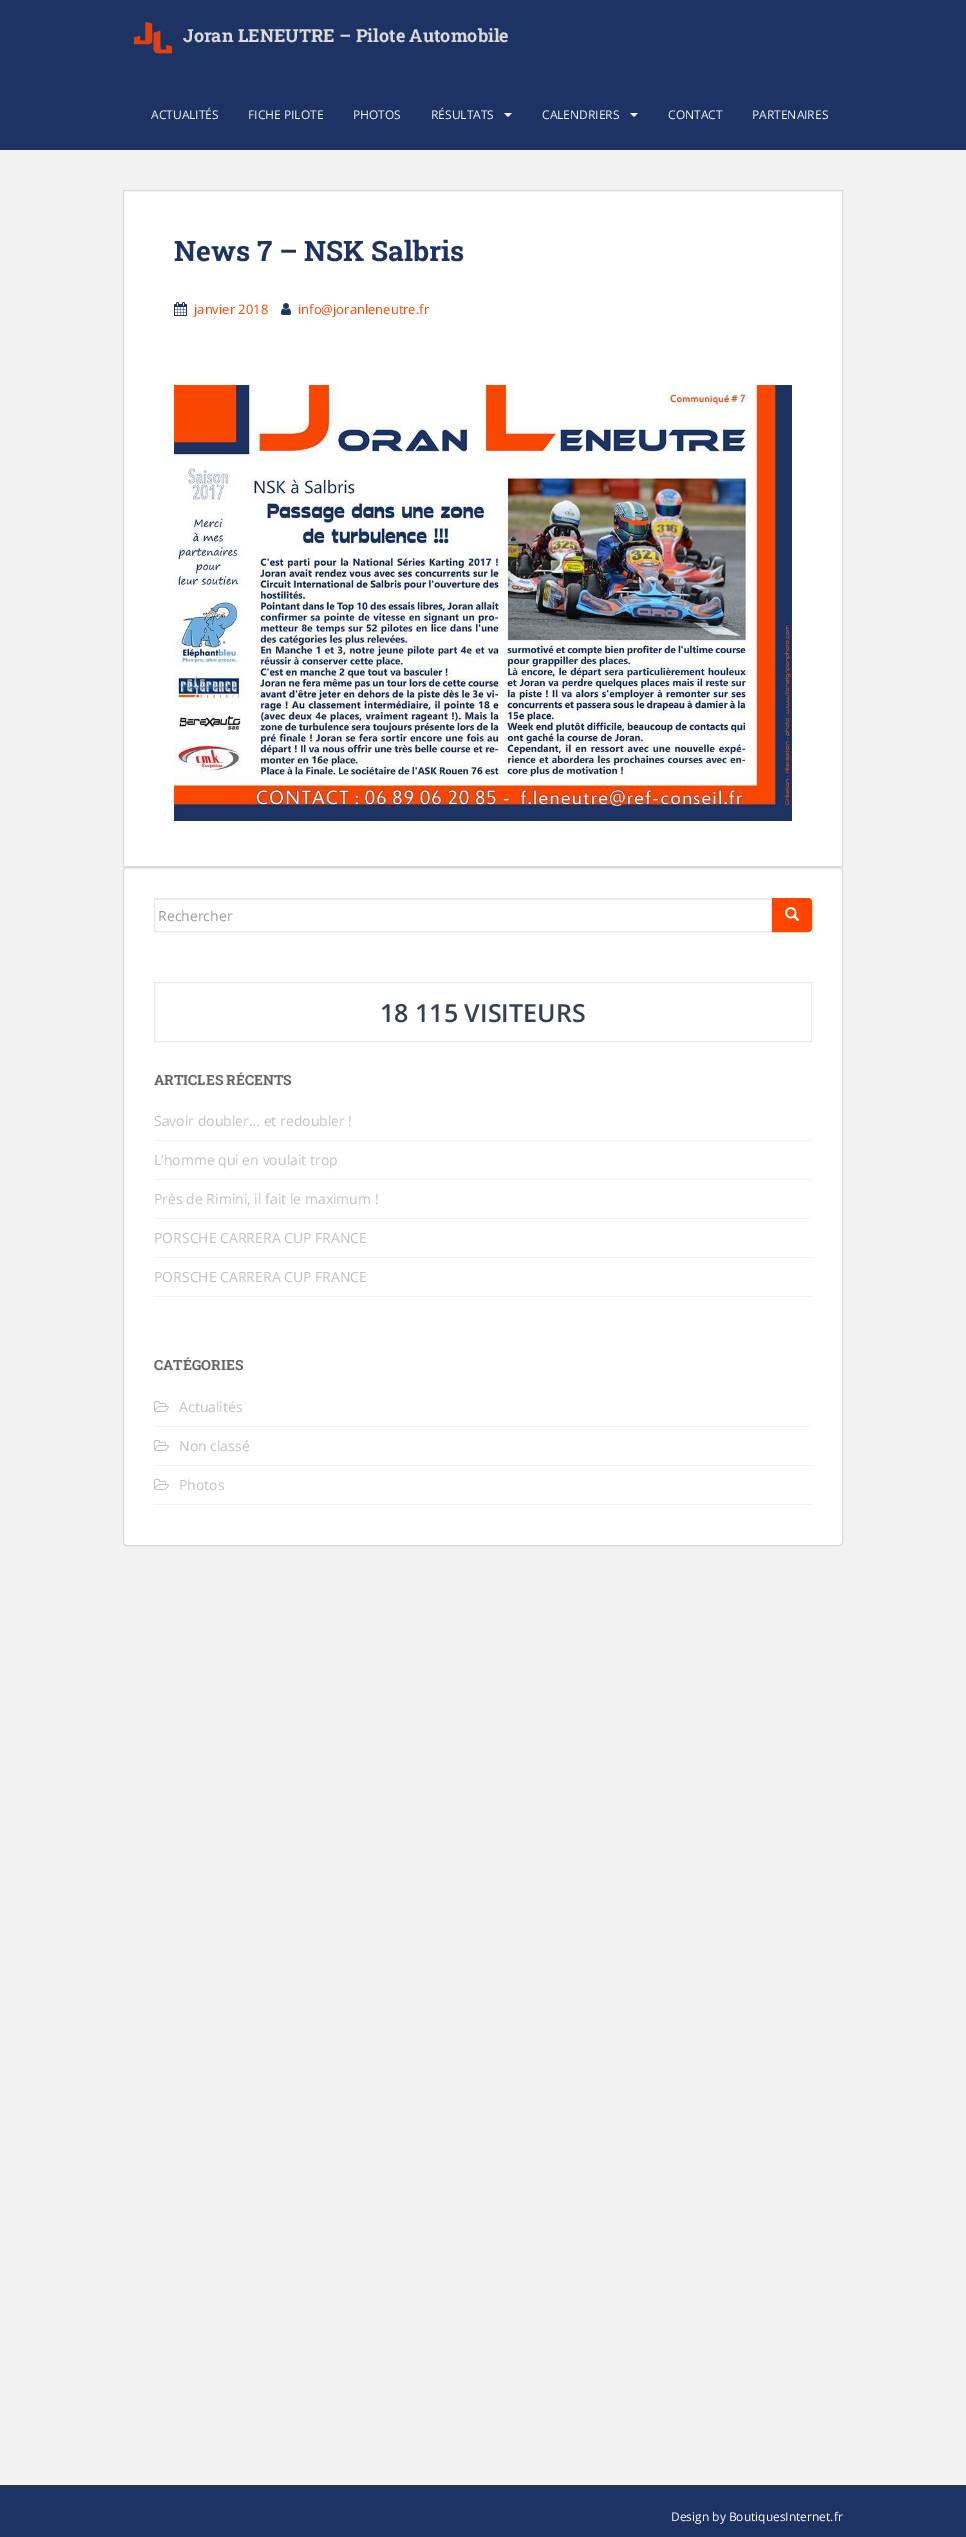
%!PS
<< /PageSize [966 2537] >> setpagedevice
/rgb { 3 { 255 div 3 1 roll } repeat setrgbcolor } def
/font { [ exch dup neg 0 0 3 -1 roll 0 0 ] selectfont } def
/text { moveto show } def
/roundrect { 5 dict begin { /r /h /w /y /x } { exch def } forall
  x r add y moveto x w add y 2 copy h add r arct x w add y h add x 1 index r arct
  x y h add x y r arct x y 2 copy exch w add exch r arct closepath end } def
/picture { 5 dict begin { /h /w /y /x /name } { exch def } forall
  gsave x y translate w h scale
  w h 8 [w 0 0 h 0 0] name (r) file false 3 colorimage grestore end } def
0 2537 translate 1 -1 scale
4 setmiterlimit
242 242 242 rgb
0 0 966 2537 rectfill
28 51 99 rgb
0 0 966 150 rectfill
(img_01.rgb) 133 21 39 33 picture
245 247 250 rgb
504 113 moveto 8 0 rlineto -4 4 rlineto closepath fill
630 113 moveto 8 0 rlineto -4 4 rlineto closepath fill
255 255 255 rgb
123.5 190.5 moveto 719 0 rlineto 0 676 rlineto -719 0 rlineto closepath gsave fill grestore
218 218 218 rgb
stroke
(img_02.rgb) 174 302 13 14 picture
(img_03.rgb) 281 303 10 12 picture
(img_04.rgb) 174 385 618 436 picture
255 255 255 rgb
123 867 720 679 4 roundrect fill
242 242 242 rgb
127 869 moveto 712 0 rlineto 2 0 3 1 3 3 rcurveto 0 -2 -1 -4 -3 -4 rcurveto -712 0 rlineto -2 0 -3 2 -3 4 rcurveto 0 -2 1 -3 3 -3 rcurveto closepath fill
218 218 218 rgb
123.5 867.5 719 678 3.5 roundrect stroke
236 236 236 rgb
155 899 616 1 rectfill
232 232 232 rgb
154.5 898.5 617 33 rectstroke
255 69 0 rgb
772.5 898.5 moveto 35.5 0 rlineto 2 0 3.5 1.5 3.5 3.5 rcurveto 0 26 rlineto 0 2 -1.5 3.5 -3.5 3.5 rcurveto -35.5 0 rlineto closepath gsave fill grestore
stroke
(img_05.rgb) 785 907 15 14 picture
230 234 238 rgb
154.5 982.5 657 59 rectstroke
242 242 242 rgb
154 1140 658 1 rectfill
154 1179 658 1 rectfill
154 1218 658 1 rectfill
154 1257 658 1 rectfill
154 1296 658 1 rectfill
154 1426 658 1 rectfill
(img_06.rgb) 154 1401 15 11 picture
154 1465 658 1 rectfill
(img_06.rgb) 154 1440 15 11 picture
154 1504 658 1 rectfill
(img_06.rgb) 154 1479 15 11 picture
28 51 99 rgb
0 2486 966 51 rectfill
58 58 58 rgb
0 2485 966 1 rectfill
/RobotoSlab-Bold 18 font
218 218 218 rgb
(Joran LENEUTRE – Pilote Automobile) 183 42 text
/OpenSans-Regular 12 font
245 247 250 rgb
(ACTUALITÉS) 151 119 text
(FICHE PILOTE) 248 119 text
(PHOTOS) 353 119 text
(RÉSULTATS) 431 119 text
(CALENDRIERS) 542 119 text
(CONTACT) 668 119 text
(PARTENAIRES) 752 119 text
/RobotoSlab-Bold 28 font
28 51 99 rgb
(News 7 – NSK Salbris) 174 261 text
/OpenSans-Regular 13 font
255 69 0 rgb
(janvier 2018) 194 314 text
(info@joranleneutre.fr) 298 314 text
/OpenSans-Regular 14 font
153 153 153 rgb
(Rechercher) 158 921 text
/OpenSans-SemiBold 25 font
53 64 82 rgb
(18 115 VISITEURS) 380 1022 text
/RobotoSlab-Bold 14 font
99 100 103 rgb
(ARTICLES RÉCENTS) 154 1085 text
/OpenSans-Regular 14 font
193 192 192 rgb
(Savoir doubler… et redoubler !) 154 1126 text
(L’homme qui en voulait trop) 154 1165 text
(Près de Rimini, il fait le maximum !) 154 1204 text
(PORSCHE CARRERA CUP FRANCE) 154 1243 text
(PORSCHE CARRERA CUP FRANCE) 154 1282 text
/RobotoSlab-Bold 14 font
99 100 103 rgb
(CATÉGORIES) 154 1370 text
/OpenSans-Regular 14 font
193 192 192 rgb
(Actualités) 179 1412 text
(Non classé) 179 1451 text
(Photos) 179 1490 text
/OpenSans-Regular 12 font
255 255 255 rgb
(Design by BoutiquesInternet.fr) 671 2521 text
showpage
